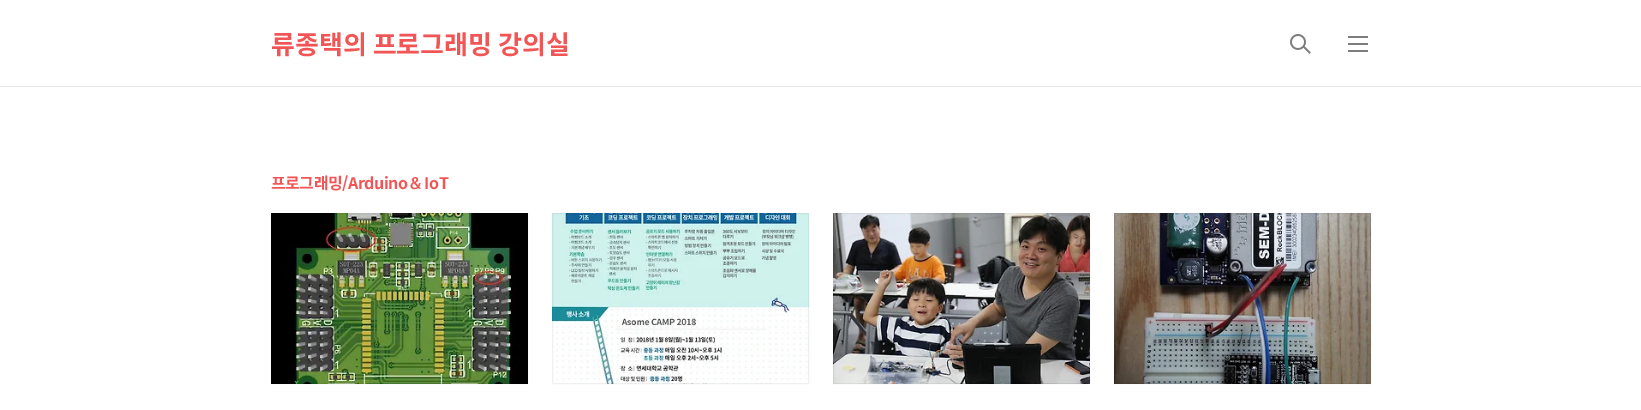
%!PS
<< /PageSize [1641 410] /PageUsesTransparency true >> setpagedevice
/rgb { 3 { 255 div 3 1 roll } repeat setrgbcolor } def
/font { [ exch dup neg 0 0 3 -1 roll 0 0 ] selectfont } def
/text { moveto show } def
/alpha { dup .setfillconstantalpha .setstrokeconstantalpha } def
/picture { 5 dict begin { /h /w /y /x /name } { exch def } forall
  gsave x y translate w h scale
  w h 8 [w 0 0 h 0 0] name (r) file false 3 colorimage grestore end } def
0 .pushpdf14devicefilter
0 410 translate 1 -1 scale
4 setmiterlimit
255 255 255 rgb
0 0 1641 410 rectfill
230 230 230 rgb
0 86 1641 1 rectfill
(img_01.rgb) 1290 34 21 20 picture
(img_02.rgb) 1348 36 20 16 picture
(img_03.rgb) 271 213 257 171 picture
0.06 alpha
0 0 0 rgb
271.5 213.5 256 170 rectstroke
1 alpha
(img_04.rgb) 552 213 257 171 picture
0.06 alpha
552.5 213.5 256 170 rectstroke
1 alpha
(img_05.rgb) 833 213 257 171 picture
0.06 alpha
833.5 213.5 256 170 rectstroke
1 alpha
(img_06.rgb) 1114 213 257 171 picture
0.06 alpha
1114.5 213.5 256 170 rectstroke
/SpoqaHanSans-Bold 26 font
1 alpha
242 85 85 rgb
(류종택의 프로그래밍 강의실) 271 54 text
/SpoqaHanSans-Bold 16 font
271 189 moveto -0.5 0 (프로그래밍/Arduino & IoT) ashow
.poppdf14devicefilter showpage
